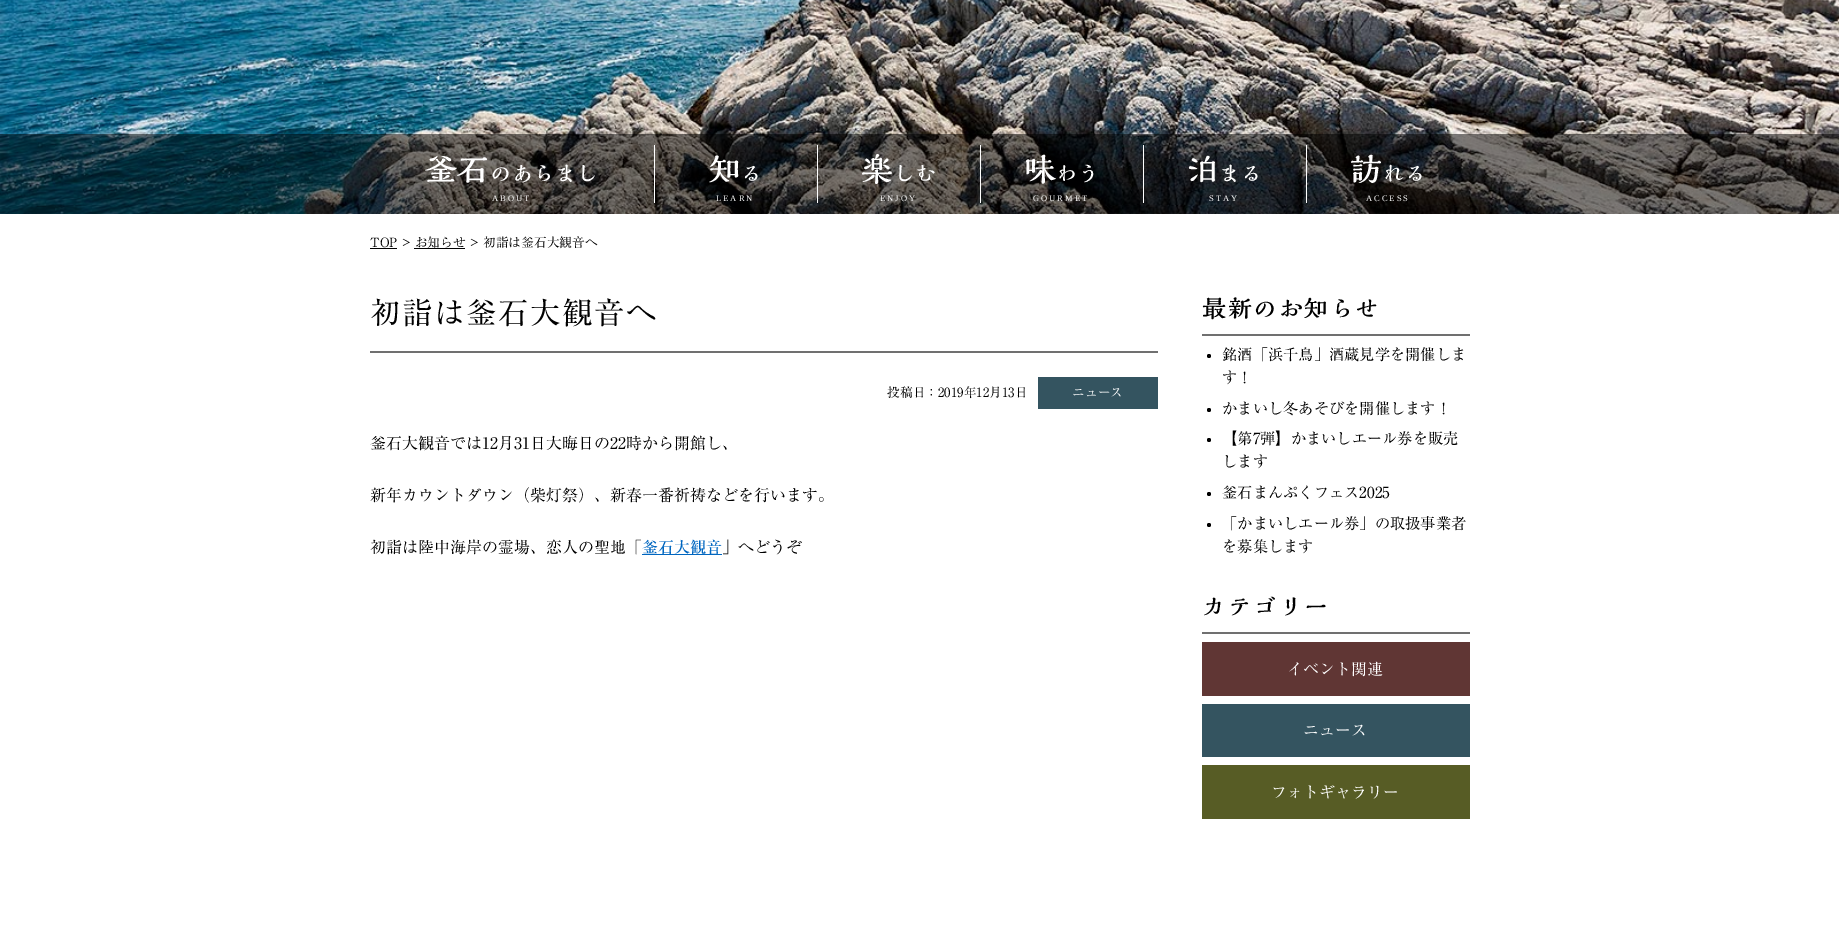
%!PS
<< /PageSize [1839 945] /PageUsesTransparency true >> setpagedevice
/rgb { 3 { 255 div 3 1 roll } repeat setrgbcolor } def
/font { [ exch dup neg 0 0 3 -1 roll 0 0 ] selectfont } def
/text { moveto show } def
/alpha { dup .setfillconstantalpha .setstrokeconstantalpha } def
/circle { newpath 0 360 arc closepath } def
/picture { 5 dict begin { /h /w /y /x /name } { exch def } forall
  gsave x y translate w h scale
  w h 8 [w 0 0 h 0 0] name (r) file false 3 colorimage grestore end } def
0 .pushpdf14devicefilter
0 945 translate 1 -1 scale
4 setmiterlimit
255 255 255 rgb
0 0 1839 945 rectfill
(img_01.rgb) 0 0 1839 214 picture
0.5 alpha
0 0 0 rgb
0 134 1839 80 rectfill
1 alpha
255 255 255 rgb
654 145 1 58 rectfill
817 145 1 58 rectfill
980 145 1 58 rectfill
1143 145 1 58 rectfill
1306 145 1 58 rectfill
0 0 0 rgb
370 248 27 1 rectfill
414 248 51 1 rectfill
112 112 112 rgb
370 351 788 2 rectfill
52 84 96 rgb
1038 377 120 32 rectfill
0 102 192 rgb
642 554 80 1 rectfill
112 112 112 rgb
1202 334 268 2 rectfill
0 0 0 rgb
1209 356 2 circle fill
1209 410 2 circle fill
1209 440 2 circle fill
1209 494 2 circle fill
1209 525 2 circle fill
112 112 112 rgb
1202 632 268 2 rectfill
96 54 52 rgb
1202 642 268 54 rectfill
52 84 96 rgb
1202 704 268 53 rectfill
87 92 37 rgb
1202 765 268 54 rectfill
/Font-SemiBold 32 font
255 255 255 rgb
(釜石) 425 181 text
/Font-SemiBold 21.5 font
(のあらまし) 490 181 text
/LiberationSerif-Regular 8.5 font
492 201 moveto 2 0 (ABOUT) ashow
/Font-SemiBold 32 font
(知) 709 181 text
/Font-SemiBold 21.5 font
(る) 741 181 text
/LiberationSerif-Regular 8.5 font
716 201 moveto 2 0 (LEARN) ashow
/Font-SemiBold 32 font
(楽) 861 181 text
/Font-SemiBold 21.5 font
(しむ) 893 181 text
/LiberationSerif-Regular 8.5 font
880 201 moveto 2 0 (ENJOY) ashow
/Font-SemiBold 32 font
(味) 1024 181 text
/Font-SemiBold 21.5 font
(わう) 1056 181 text
/LiberationSerif-Regular 8.5 font
1033 201 moveto 2 0 (GOURMET) ashow
/Font-SemiBold 32 font
(泊) 1187 181 text
/Font-SemiBold 21.5 font
(まる) 1219 181 text
/LiberationSerif-Regular 8.5 font
1209 201 moveto 2 0 (STAY) ashow
/Font-SemiBold 32 font
(訪) 1350 181 text
/Font-SemiBold 21.5 font
(れる) 1383 181 text
/LiberationSerif-Regular 8.5 font
1366 201 moveto 2 0 (ACCESS) ashow
/Font-Regular 12.75 font
0 0 0 rgb
(TOP > お知らせ > 初詣は釜石大観音へ) 370 247 text
/Font-Regular 30.5 font
370 324 moveto 1.5 0 (初詣は釜石大観音へ) ashow
/Font-Regular 12.75 font
(投稿日：2019年12月13日) 887 397 text
255 255 255 rgb
(ニュース) 1072 397 text
/Font-Regular 16 font
0 0 0 rgb
(釜石大観音では12月31日大晦日の22時から開館し、) 370 449 text
(新年カウントダウン（柴灯祭）、新春一番祈祷などを行います。) 370 501 text
(初詣は陸中海岸の霊場、恋人の聖地「) 370 553 text
/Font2-Regular 16 font
0 102 192 rgb
(釜石大観音) 642 553 text
/Font-Regular 16 font
0 0 0 rgb
(」へどうぞ) 722 553 text
/Font-SemiBold 24 font
1202 317 moveto 1.5 0 (最新のお知らせ) ashow
/Font-Regular 15.25 font
(銘酒「浜千鳥」酒蔵見学を開催しま) 1222 360 text
(す！) 1222 383 text
(かまいし冬あそびを開催します！) 1222 414 text
(【第7弾】かまいしエール券を販売) 1222 444 text
(します) 1222 467 text
(釜石まんぷくフェス2025) 1222 498 text
(「かまいしエール券」の取扱事業者) 1222 529 text
(を募集します) 1222 552 text
/Font-SemiBold 24 font
1202 615 moveto 1.5 0 (カテゴリー) ashow
/Font-Regular 16 font
255 255 255 rgb
(イベント関連) 1287 675 text
(ニュース) 1303 736 text
(フォトギャラリー) 1271 798 text
.poppdf14devicefilter showpage
